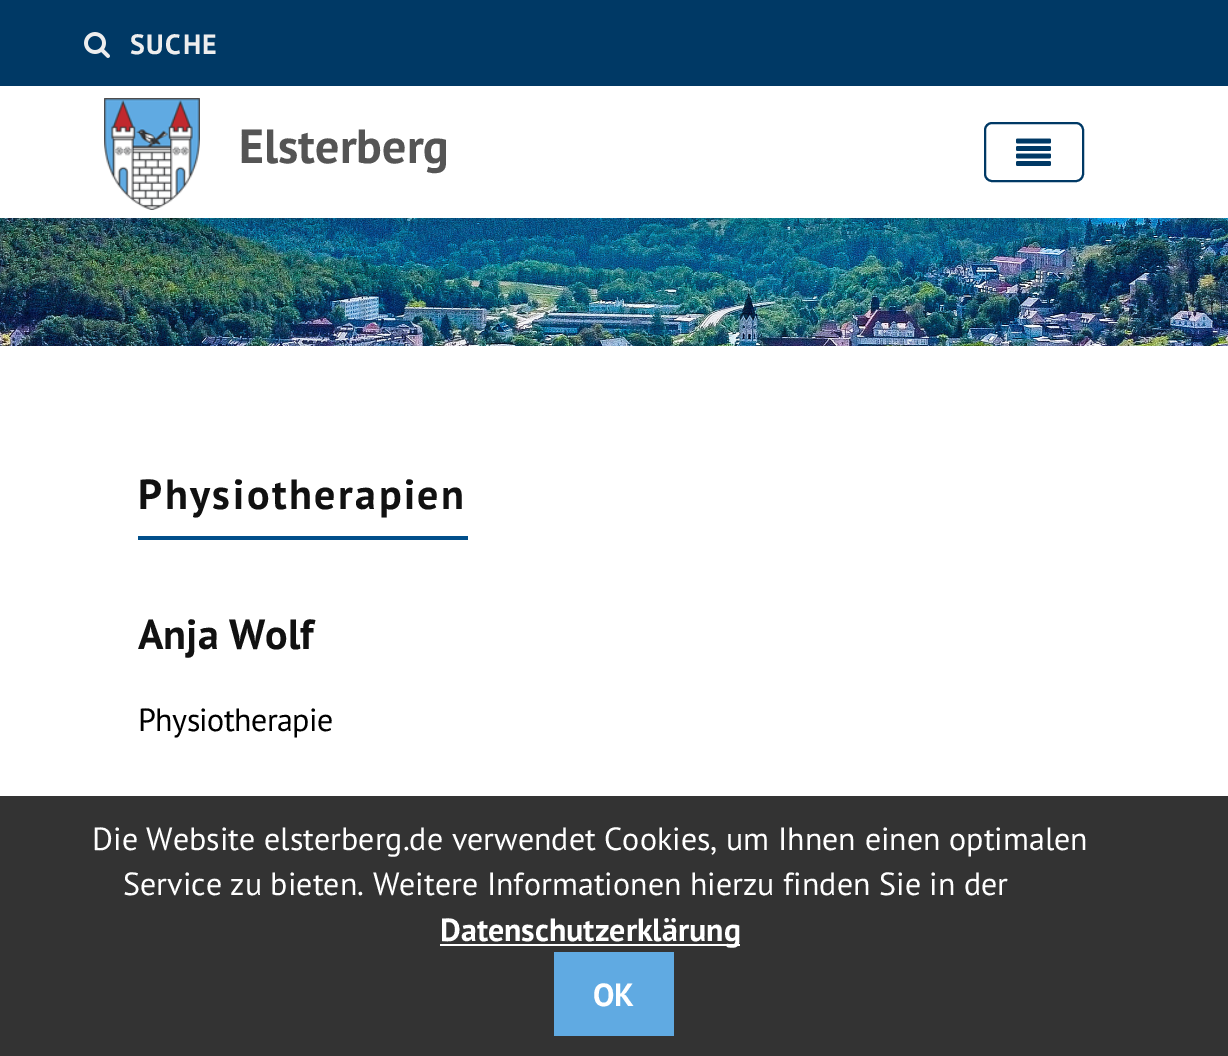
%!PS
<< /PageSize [1228 1056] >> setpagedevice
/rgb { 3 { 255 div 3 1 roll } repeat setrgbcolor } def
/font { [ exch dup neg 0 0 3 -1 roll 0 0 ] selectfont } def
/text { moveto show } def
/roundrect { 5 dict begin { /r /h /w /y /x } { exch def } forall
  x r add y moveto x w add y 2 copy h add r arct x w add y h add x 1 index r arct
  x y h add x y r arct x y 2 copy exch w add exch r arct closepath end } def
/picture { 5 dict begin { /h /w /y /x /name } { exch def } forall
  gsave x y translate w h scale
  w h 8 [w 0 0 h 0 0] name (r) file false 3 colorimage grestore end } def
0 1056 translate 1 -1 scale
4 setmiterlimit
255 255 255 rgb
0 0 1228 1056 rectfill
(img_01.rgb) 0 218 1228 128 picture
0 57 101 rgb
0 0 1228 86 rectfill
(img_02.rgb) 84 32 26 26 picture
(img_03.rgb) 104 98 96 112 picture
2 setlinewidth
985 123 98 58 7 roundrect stroke
(img_04.rgb) 1016 138 35 28 picture
1 79 139 rgb
138 536 330 4 rectfill
51 51 51 rgb
0 796 1228 260 rectfill
255 255 255 rgb
440 944 300 2 rectfill
96 170 226 rgb
554 952 120 84 rectfill
/PTSans-Bold 28 font
238 238 238 rgb
130 54 moveto 1.5 0 (SUCHE) ashow
/PTSans-Bold 48 font
85 85 85 rgb
(Elsterberg) 239 163 text
/PTSans-Bold 42 font
17 17 17 rgb
138 509 moveto 2.5 0 (Physiotherapien) ashow
(Anja Wolf) 138 649 text
/PTSans-Regular 32 font
0 0 0 rgb
138 731 moveto -0.6 0 (Physiotherapie) ashow
255 255 255 rgb
(Die Website elsterberg.de verwendet Cookies, um Ihnen einen optimalen) 92 850 text
(Service zu bieten. Weitere Informationen hierzu finden Sie in der) 123 895 text
/PTSans-Bold 32 font
(Datenschutzerklärung) 440 941 text
(OK) 593 1006 text
showpage
